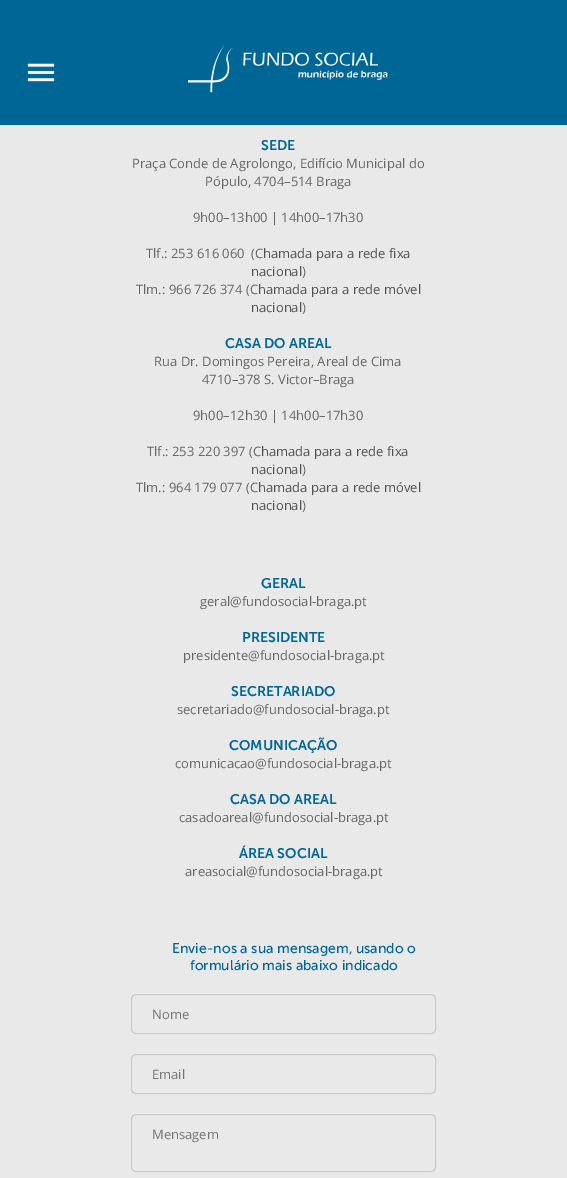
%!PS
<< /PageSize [567 1178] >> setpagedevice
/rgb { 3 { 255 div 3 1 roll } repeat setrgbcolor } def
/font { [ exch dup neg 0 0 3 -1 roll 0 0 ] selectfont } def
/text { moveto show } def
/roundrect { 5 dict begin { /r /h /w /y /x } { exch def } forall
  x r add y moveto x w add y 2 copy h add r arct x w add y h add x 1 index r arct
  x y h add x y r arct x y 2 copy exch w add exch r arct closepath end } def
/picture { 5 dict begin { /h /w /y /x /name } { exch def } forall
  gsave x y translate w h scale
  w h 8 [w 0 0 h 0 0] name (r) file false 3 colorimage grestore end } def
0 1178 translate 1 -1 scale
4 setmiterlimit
233 233 233 rgb
0 0 567 1178 rectfill
0 102 150 rgb
0 0 567 125 rectfill
(img_01.rgb) 27 63 28 19 picture
(img_02.rgb) 188 44 200 49 picture
203 203 203 rgb
131.5 994.5 304 39 4.5 roundrect stroke
131.5 1054.5 304 39 4.5 roundrect stroke
131.5 1114.5 304 57 4.5 roundrect stroke
/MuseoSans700-SemiBold 14 font
0 102 150 rgb
(SEDE) 261 150 text
/OpenSans-Regular 13 font
102 102 102 rgb
(Praça Conde de Agrolongo, Edifício Municipal do) 132 168 text
(Pópulo, 4704–514 Braga) 205 186 text
(9h00–13h00 | 14h00–17h30) 193 222 text
(Tlf.: 253 616 060) 146 258 text
(\(C) 251 258 text
81 81 81 rgb
(hamada para a rede fixa) 263 258 text
(nacional) 251 276 text
102 102 102 rgb
(\)) 302 276 text
(Tlm.: 966 726 374 \(C) 136 294 text
81 81 81 rgb
(hamada para a rede móvel) 258 294 text
(nacional) 251 312 text
102 102 102 rgb
(\)) 302 312 text
/MuseoSans700-SemiBold 14 font
0 102 150 rgb
(CASA DO AREAL) 225 348 text
/OpenSans-Regular 13 font
102 102 102 rgb
(Rua Dr. Domingos Pereira, Areal de Cima) 154 366 text
(4710–378 S. Victor–Braga) 202 384 text
(9h00–12h30 | 14h00–17h30) 193 420 text
(Tlf.: 253 220 397 \(C) 147 456 text
81 81 81 rgb
(hamada para a rede fixa) 261 456 text
(nacional) 251 474 text
102 102 102 rgb
(\)) 302 474 text
(Tlm.: 964 179 077 \(C) 136 492 text
81 81 81 rgb
(hamada para a rede móvel) 258 492 text
(nacional) 251 510 text
102 102 102 rgb
(\)) 302 510 text
/MuseoSans700-SemiBold 14 font
0 102 150 rgb
(GERAL) 261 588 text
/OpenSans-Regular 13 font
102 102 102 rgb
(geral@fundosocial-braga.pt) 200 606 text
/MuseoSans700-SemiBold 14 font
0 102 150 rgb
(PRESIDENTE) 242 642 text
/OpenSans-Regular 13 font
102 102 102 rgb
(presidente@fundosocial-braga.pt) 183 660 text
/MuseoSans700-SemiBold 14 font
0 102 150 rgb
(SECRETARIADO) 231 696 text
/OpenSans-Regular 13 font
102 102 102 rgb
(secretariado@fundosocial-braga.pt) 177 714 text
/MuseoSans700-SemiBold 14 font
0 102 150 rgb
(COMUNICAÇÃO) 229 750 text
/OpenSans-Regular 13 font
102 102 102 rgb
(comunicacao@fundosocial-braga.pt) 175 768 text
/MuseoSans700-SemiBold 14 font
0 102 150 rgb
(CASA DO AREAL) 230 804 text
/OpenSans-Regular 13 font
102 102 102 rgb
(casadoareal@fundosocial-braga.pt) 179 822 text
/MuseoSans700-SemiBold 14 font
0 102 150 rgb
(ÁREA SOCIAL) 239 858 text
/OpenSans-Regular 13 font
102 102 102 rgb
(areasocial@fundosocial-braga.pt) 185 876 text
/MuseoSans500-Regular 14 font
0 102 150 rgb
(Envie-nos a sua mensagem, usando o) 172 953 text
(formulário mais abaixo indicado) 190 970 text
/OpenSans-Regular 13 font
117 117 117 rgb
(Nome) 152 1019 text
(Email) 152 1079 text
(Mensagem) 152 1139 text
showpage
